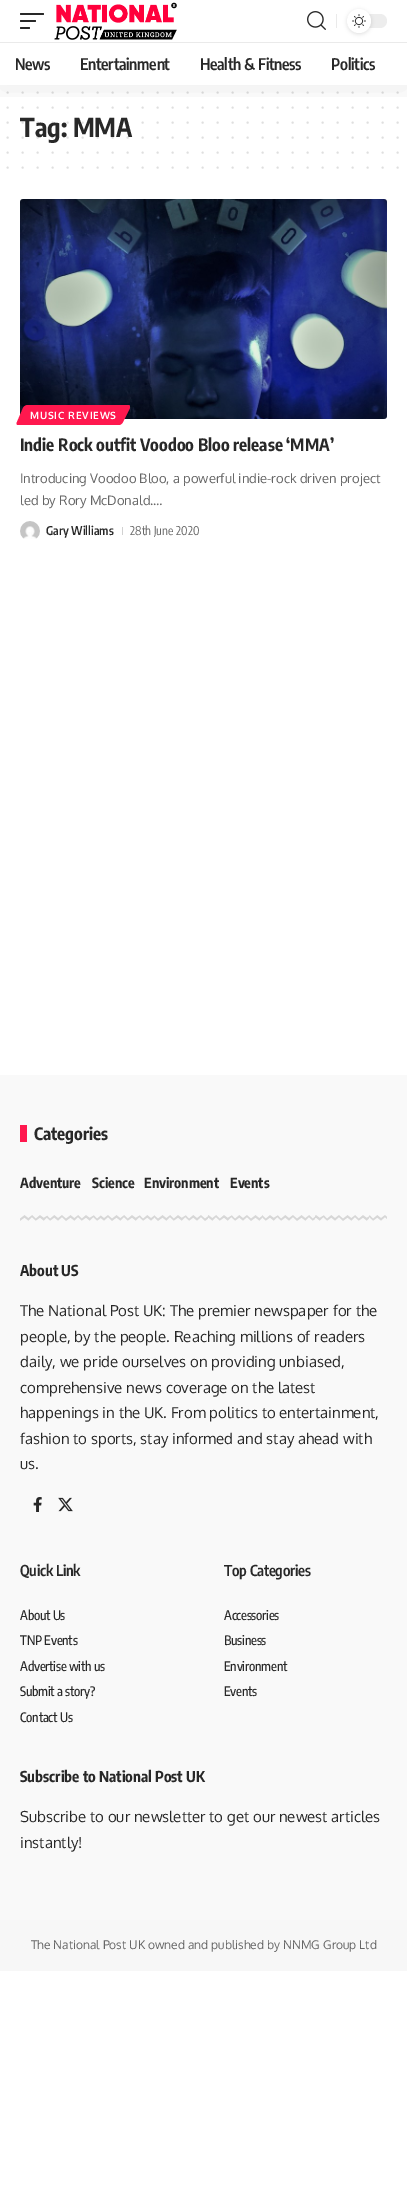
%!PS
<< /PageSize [407 2201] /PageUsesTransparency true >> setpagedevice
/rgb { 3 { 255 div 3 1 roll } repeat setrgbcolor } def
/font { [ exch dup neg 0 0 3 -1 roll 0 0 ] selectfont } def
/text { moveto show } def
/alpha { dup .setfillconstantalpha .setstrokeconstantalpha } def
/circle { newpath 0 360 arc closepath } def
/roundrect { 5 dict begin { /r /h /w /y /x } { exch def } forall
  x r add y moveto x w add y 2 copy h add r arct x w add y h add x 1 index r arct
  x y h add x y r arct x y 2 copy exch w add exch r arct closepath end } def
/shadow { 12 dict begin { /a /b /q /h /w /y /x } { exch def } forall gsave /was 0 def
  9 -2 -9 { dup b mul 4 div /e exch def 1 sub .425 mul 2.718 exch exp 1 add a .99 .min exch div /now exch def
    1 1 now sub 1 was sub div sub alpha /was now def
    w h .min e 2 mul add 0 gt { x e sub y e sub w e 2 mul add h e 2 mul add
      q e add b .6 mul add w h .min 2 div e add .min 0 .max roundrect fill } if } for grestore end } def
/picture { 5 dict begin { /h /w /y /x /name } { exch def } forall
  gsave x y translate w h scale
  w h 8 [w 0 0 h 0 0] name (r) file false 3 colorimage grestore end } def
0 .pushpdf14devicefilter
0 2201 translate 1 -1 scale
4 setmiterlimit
255 255 255 rgb
0 0 407 2201 rectfill
223 223 223 rgb
2 setlinewidth
1 setlinecap
[0 15] 0 setdash
7.5 92.5 moveto 390.2 0 rlineto stroke
7.5 107.5 moveto 390.2 0 rlineto stroke
7.5 152.5 moveto 390.2 0 rlineto stroke
7.5 167.5 moveto 390.2 0 rlineto stroke
(img_04.rgb) 20 199 367 220 picture
255 24 78 rgb
28 405 moveto 100 0 rlineto 2 0 2 1 2 3 rcurveto -7 14 rlineto -1 2 -3 3 -4 3 rcurveto -101 0 rlineto -1 0 -2 -1 -1 -3 rcurveto 6 -14 rlineto 1 -2 3 -3 5 -3 rcurveto closepath fill
(img_05.rgb) 20 521 20 18 picture
209 209 209 rgb
122 527 1 8 rectfill
249 249 249 rgb
0 1075 407 845 rectfill
255 24 78 rgb
20 1125 7 17 rectfill
(img_06.rgb) 20 1215 367 6 picture
(img_07.rgb) 33 1497 9 15 picture
(img_08.rgb) 58 1497 15 15 picture
247 247 247 rgb
0 1920 407 51 rectfill
/EncodeSansCondensed-Bold 26 font
40 40 40 rgb
(Tag: MMA) 20 137 text
0.15 alpha
7.5 122.5 moveto 390.2 0 rlineto stroke
gsave
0 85 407 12 rectclip
1 alpha
0 0 0 rgb
0 4 407 85 0 15 0.07 shadow
grestore
/EncodeSansCondensed-SemiBold 16 font
1 alpha
331 70 moveto -0.3 0 (Politics) ashow
200 70 moveto -0.3 0 (Health & Fitness) ashow
80 70 moveto -0.3 0 (Entertainment) ashow
15 70 moveto -0.3 0 (News) ashow
234 234 234 rgb
0 42 407 1 rectfill
237 237 237 rgb
347 14 40 14 7 roundrect fill
0 0 0 rgb
347 10 24 24 12 2 0.12 shadow
255 255 255 rgb
359 21 12 circle fill
(img_03.rgb) 352 14 14 14 picture
234 234 234 rgb
336 14 1 14 rectfill
(img_02.rgb) 307 11 19 19 picture
40 40 40 rgb
20 27 10 2 1 roundrect fill
20 20 16 2 1 roundrect fill
20 13 24 2 1 roundrect fill
(img_01.rgb) 54 2 123 38 picture
0.15 alpha
7.5 137.5 moveto 390.2 0 rlineto stroke
/Oxygen-Bold 10 font
1 alpha
255 255 255 rgb
30 419 moveto 0.75 0 (MUSIC REVIEWS) ashow
/EncodeSansCondensed-Bold 17 font
40 40 40 rgb
(Indie Rock outfit Voodoo Bloo release ‘MMA’) 20 451 text
/Oxygen-Regular 13 font
102 102 102 rgb
(Introducing Voodoo Bloo, a powerful indie-rock driven project) 20 483 text
(led by Rory McDonald.…) 20 505 text
/EncodeSansCondensed-SemiBold 12 font
40 40 40 rgb
(Gary Williams) 46 535 text
/EncodeSansCondensed-Regular 12 font
102 102 102 rgb
(28th June 2020) 130 535 text
/EncodeSansCondensed-Bold 17 font
40 40 40 rgb
(Categories) 34 1140 text
/EncodeSansCondensed-Bold 14 font
(Adventure) 20 1188 text
(Science) 92 1188 text
(Environment) 144 1188 text
(Events) 230 1188 text
/EncodeSansCondensed-Bold 15 font
(About US) 20 1276 text
/Oxygen-Regular 15 font
(The National Post UK: The premier newspaper for the) 20 1316 text
(people, by the people. Reaching millions of readers) 20 1342 text
(daily, we pride ourselves on providing unbiased,) 20 1367 text
(comprehensive news coverage on the latest) 20 1393 text
(happenings in the UK. From politics to entertainment,) 20 1418 text
(fashion to sports, stay informed and stay ahead with) 20 1444 text
(us.) 20 1469 text
/EncodeSansCondensed-SemiBold 15 font
20 1576 moveto -0.25 0 (Quick Link) ashow
/EncodeSansCondensed-Medium 13 font
20 1620 moveto -0.25 0 (About Us) ashow
20 1645 moveto -0.25 0 (TNP Events) ashow
20 1671 moveto -0.25 0 (Advertise with us) ashow
20 1696 moveto -0.25 0 (Submit a story?) ashow
20 1722 moveto -0.25 0 (Contact Us) ashow
/EncodeSansCondensed-SemiBold 15 font
224 1576 moveto -0.25 0 (Top Categories) ashow
/EncodeSansCondensed-Medium 13 font
224 1620 moveto -0.25 0 (Accessories) ashow
224 1645 moveto -0.25 0 (Business) ashow
224 1671 moveto -0.25 0 (Environment) ashow
224 1696 moveto -0.25 0 (Events) ashow
/EncodeSansCondensed-Bold 15 font
(Subscribe to National Post UK) 20 1782 text
/Oxygen-Regular 15 font
(Subscribe to our newsletter to get our newest articles) 20 1822 text
(instantly!) 20 1848 text
/Oxygen-Regular 12 font
102 102 102 rgb
(The National Post UK owned and published by NNMG Group Ltd) 31 1949 text
.poppdf14devicefilter showpage
